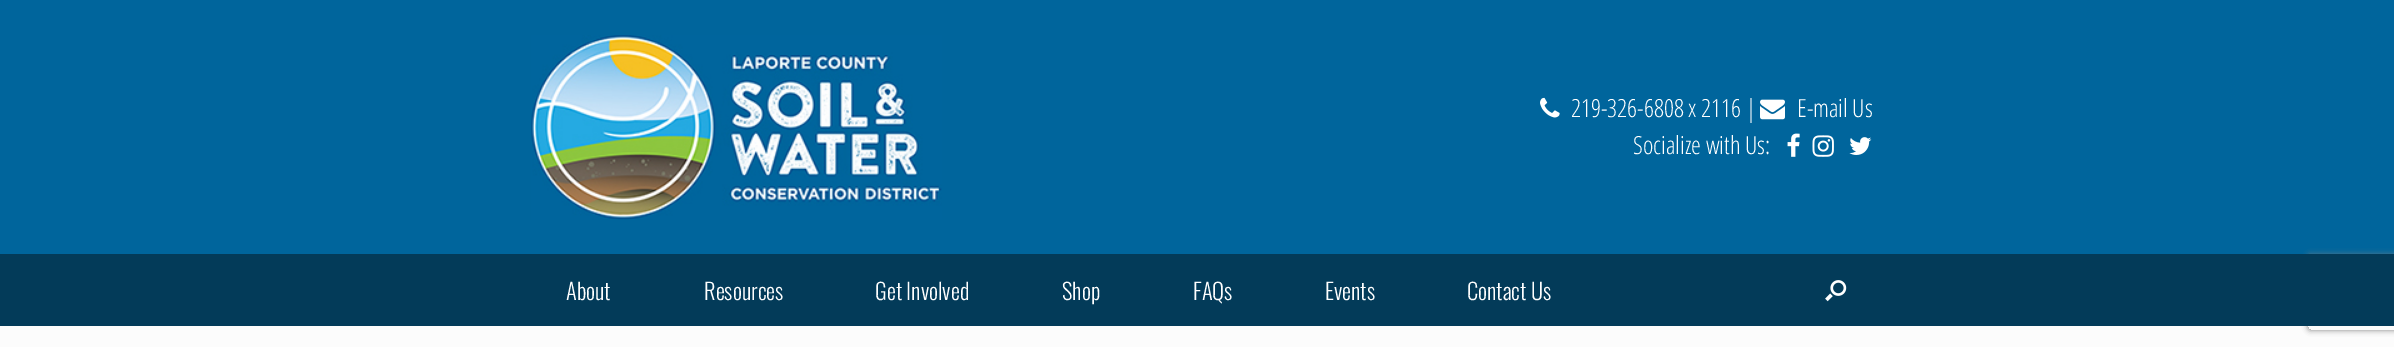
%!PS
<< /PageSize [2394 347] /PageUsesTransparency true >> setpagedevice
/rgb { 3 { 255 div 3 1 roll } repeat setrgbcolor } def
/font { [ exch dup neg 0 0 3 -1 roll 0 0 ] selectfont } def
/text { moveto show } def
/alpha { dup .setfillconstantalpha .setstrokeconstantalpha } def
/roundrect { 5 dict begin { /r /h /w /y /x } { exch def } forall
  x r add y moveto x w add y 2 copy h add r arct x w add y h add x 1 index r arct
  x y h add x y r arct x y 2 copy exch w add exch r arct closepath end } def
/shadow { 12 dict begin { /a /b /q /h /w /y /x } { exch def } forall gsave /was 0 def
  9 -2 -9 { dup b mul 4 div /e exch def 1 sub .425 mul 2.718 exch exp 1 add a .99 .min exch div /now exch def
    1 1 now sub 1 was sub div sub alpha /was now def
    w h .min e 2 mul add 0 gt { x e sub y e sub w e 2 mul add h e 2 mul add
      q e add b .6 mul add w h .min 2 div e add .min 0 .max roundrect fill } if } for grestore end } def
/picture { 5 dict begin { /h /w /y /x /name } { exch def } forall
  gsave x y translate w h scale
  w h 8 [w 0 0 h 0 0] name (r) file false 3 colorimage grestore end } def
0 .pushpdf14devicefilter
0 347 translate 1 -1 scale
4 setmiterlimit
0 101 156 rgb
0 0 2394 347 rectfill
(img_01.rgb) 531 35 411 185 picture
(img_02.rgb) 1540 97 20 21 picture
(img_03.rgb) 1760 99 25 21 picture
(img_04.rgb) 1787 133 13 24 picture
(img_05.rgb) 1812 135 22 22 picture
(img_06.rgb) 1849 137 23 18 picture
252 252 252 rgb
0 326 2394 21 rectfill
gsave
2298 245 moveto 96 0 rlineto 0 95 rlineto -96 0 rlineto closepath 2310.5 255 moveto 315 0 rlineto 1.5 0 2.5 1 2.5 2.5 rcurveto 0 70 rlineto 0 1.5 -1 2.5 -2.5 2.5 rcurveto -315 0 rlineto -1.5 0 -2.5 -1 -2.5 -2.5 rcurveto 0 -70 rlineto 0 -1.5 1 -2.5 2.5 -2.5 rcurveto closepath eoclip newpath
128 128 128 rgb
2308 255 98 75 2.5 3 1 shadow
grestore
3 59 89 rgb
0 254 2394 72 rectfill
(img_07.rgb) 1825 280 22 22 picture
/OpenSansCondensed-Light 25 font
255 255 255 rgb
(219-326-6808 x 2116 |) 1571 117 text
(E-mail Us) 1797 117 text
(Socialize with Us:) 1633 154 text
/Oswald-Light 22.5 font
(About) 566 300 text
(Resources) 704 300 text
(Get Involved) 875 300 text
(Shop) 1062 300 text
(FAQs) 1193 300 text
(Events) 1325 300 text
(Contact Us) 1467 300 text
.poppdf14devicefilter showpage
